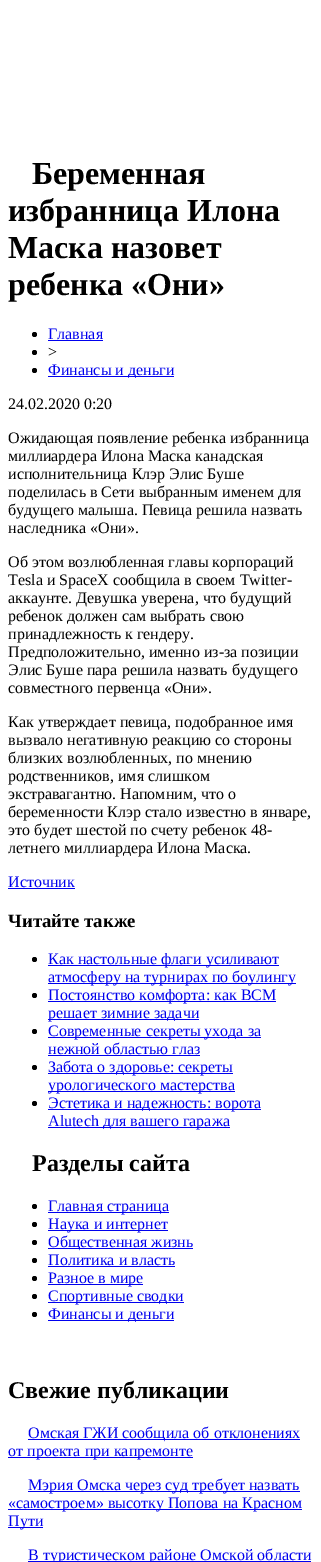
%!PS
<< /PageSize [321 1562] >> setpagedevice
/rgb { 3 { 255 div 3 1 roll } repeat setrgbcolor } def
/font { [ exch dup neg 0 0 3 -1 roll 0 0 ] selectfont } def
/text { moveto show } def
/circle { newpath 0 360 arc closepath } def
0 1562 translate 1 -1 scale
4 setmiterlimit
255 255 255 rgb
0 0 321 1562 rectfill
0 0 0 rgb
34.5 334.5 2.5 circle fill
0 0 238 rgb
48 340 55 1 rectfill
0 0 0 rgb
34.5 352.5 2.5 circle fill
34.5 370.5 2.5 circle fill
0 0 238 rgb
48 376 126 1 rectfill
8 888 67 1 rectfill
0 0 0 rgb
34.5 959.5 2.5 circle fill
0 0 238 rgb
48 965 231 1 rectfill
48 983 248 1 rectfill
0 0 0 rgb
34.5 995.5 2.5 circle fill
0 0 238 rgb
48 1001 228 1 rectfill
48 1019 151 1 rectfill
0 0 0 rgb
34.5 1031.5 2.5 circle fill
0 0 238 rgb
48 1037 213 1 rectfill
48 1055 152 1 rectfill
0 0 0 rgb
34.5 1067.5 2.5 circle fill
0 0 238 rgb
48 1073 185 1 rectfill
48 1091 187 1 rectfill
0 0 0 rgb
34.5 1103.5 2.5 circle fill
0 0 238 rgb
48 1109 213 1 rectfill
48 1127 182 1 rectfill
0 0 0 rgb
34.5 1206.5 2.5 circle fill
0 0 238 rgb
48 1212 121 1 rectfill
0 0 0 rgb
34.5 1224.5 2.5 circle fill
0 0 238 rgb
48 1230 120 1 rectfill
0 0 0 rgb
34.5 1242.5 2.5 circle fill
0 0 238 rgb
48 1248 145 1 rectfill
0 0 0 rgb
34.5 1260.5 2.5 circle fill
0 0 238 rgb
48 1266 127 1 rectfill
0 0 0 rgb
34.5 1278.5 2.5 circle fill
0 0 238 rgb
48 1284 95 1 rectfill
0 0 0 rgb
34.5 1296.5 2.5 circle fill
0 0 238 rgb
48 1302 136 1 rectfill
0 0 0 rgb
34.5 1314.5 2.5 circle fill
0 0 238 rgb
48 1320 126 1 rectfill
28 1439 272 1 rectfill
8 1457 185 1 rectfill
28 1491 272 1 rectfill
8 1509 294 1 rectfill
8 1527 35 1 rectfill
28 1561 283 1 rectfill
/LiberationSerif-Bold 32 font
0 0 0 rgb
(Беременная) 32 184 text
(избранница Илона) 8 221 text
(Маска назовет) 8 258 text
(ребенка «Они») 8 295 text
/LiberationSerif-Regular 16 font
0 0 238 rgb
(Главная) 48 339 text
0 0 0 rgb
(>) 48 357 text
0 0 238 rgb
(Финансы и деньги) 48 375 text
0 0 0 rgb
(24.02.2020 0:20) 8 409 text
(Ожидающая появление ребенка избранница) 8 443 text
(миллиардера Илона Маска канадская) 8 461 text
(исполнительница Клэр Элис Буше) 8 479 text
(поделилась в Сети выбранным именем для) 8 497 text
(будущего малыша. Певица решила назвать) 8 515 text
(наследника «Они».) 8 533 text
(Об этом возлюбленная главы корпораций) 8 567 text
(Tesla и SpaceX сообщила в своем Twitter-) 8 585 text
(аккаунте. Девушка уверена, что будущий) 8 603 text
(ребенок должен сам выбрать свою) 8 621 text
(принадлежность к гендеру.) 8 639 text
(Предположительно, именно из-за позиции) 8 657 text
(Элис Буше пара решила назвать будущего) 8 675 text
(совместного первенца «Они».) 8 693 text
(Как утверждает певица, подобранное имя) 8 727 text
(вызвало негативную реакцию со стороны) 8 745 text
(близких возлюбленных, по мнению) 8 763 text
(родственников, имя слишком) 8 781 text
(экстравагантно. Напомним, что о) 8 799 text
(беременности Клэр стало известно в январе,) 8 817 text
(это будет шестой по счету ребенок 48-) 8 835 text
(летнего миллиардера Илона Маска.) 8 853 text
0 0 238 rgb
(Источник) 8 887 text
/LiberationSerif-Bold 18.75 font
0 0 0 rgb
(Читайте также) 8 927 text
/LiberationSerif-Regular 16 font
0 0 238 rgb
(Как настольные флаги усиливают) 48 964 text
(атмосферу на турнирах по боулингу) 48 982 text
(Постоянство комфорта: как ВСМ) 48 1000 text
(решает зимние задачи) 48 1018 text
(Современные секреты ухода за) 48 1036 text
(нежной областью глаз) 48 1054 text
(Забота о здоровье: секреты) 48 1072 text
(урологического мастерства) 48 1090 text
(Эстетика и надежность: ворота) 48 1108 text
(Alutech для вашего гаража) 48 1126 text
/LiberationSerif-Bold 24 font
0 0 0 rgb
(Разделы сайта) 32 1171 text
/LiberationSerif-Regular 16 font
0 0 238 rgb
(Главная страница) 48 1211 text
(Наука и интернет) 48 1229 text
(Общественная жизнь) 48 1247 text
(Политика и власть) 48 1265 text
(Разное в мире) 48 1283 text
(Спортивные сводки) 48 1301 text
(Финансы и деньги) 48 1319 text
/LiberationSerif-Bold 24 font
0 0 0 rgb
(Свежие публикации) 8 1398 text
/LiberationSerif-Regular 16 font
0 0 238 rgb
(Омская ГЖИ сообщила об отклонениях) 28 1438 text
(от проекта при капремонте) 8 1456 text
(Мэрия Омска через суд требует назвать) 28 1490 text
(«самостроем» высотку Попова на Красном) 8 1508 text
(Пути) 8 1526 text
(В туристическом районе Омской области) 28 1560 text
showpage
